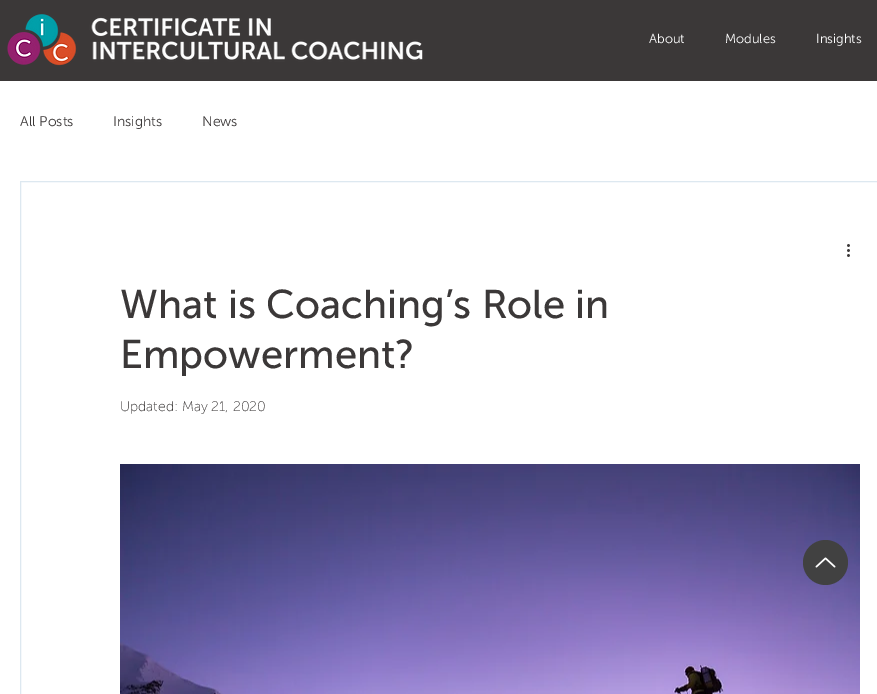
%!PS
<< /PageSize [877 694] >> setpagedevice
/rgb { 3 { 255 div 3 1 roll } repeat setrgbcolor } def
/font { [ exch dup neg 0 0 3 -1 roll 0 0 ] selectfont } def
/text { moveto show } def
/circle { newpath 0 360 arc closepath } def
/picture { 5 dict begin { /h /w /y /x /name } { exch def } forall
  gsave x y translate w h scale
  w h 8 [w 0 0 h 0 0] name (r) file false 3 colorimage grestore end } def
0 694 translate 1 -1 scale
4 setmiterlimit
255 255 255 rgb
0 0 877 694 rectfill
59 56 56 rgb
0 0 877 81 rectfill
(img_01.rgb) 7 14 416 52 picture
221 232 240 rgb
20.5 181.5 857 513 rectstroke
(img_02.rgb) 847 244 3 13 picture
(img_03.rgb) 120 464 740 230 picture
65 65 65 rgb
825.5 562.5 22.5 circle fill
(img_04.rgb) 815 557 21 11 picture
/MuseoSans-Light 13 font
255 255 255 rgb
(About) 649 43 text
(Modules) 725 43 text
(Insights) 816 43 text
/MuseoSans-Light 14 font
59 56 56 rgb
(All Posts) 20 126 text
(Insights) 113 126 text
(News) 202 126 text
/MuseoSans-Regular 40 font
(What is Coaching’s Role in) 120 318 text
(Empowerment?) 120 368 text
/MuseoSans-ExtraLight 14 font
(Updated: May 21, 2020) 120 411 text
showpage
